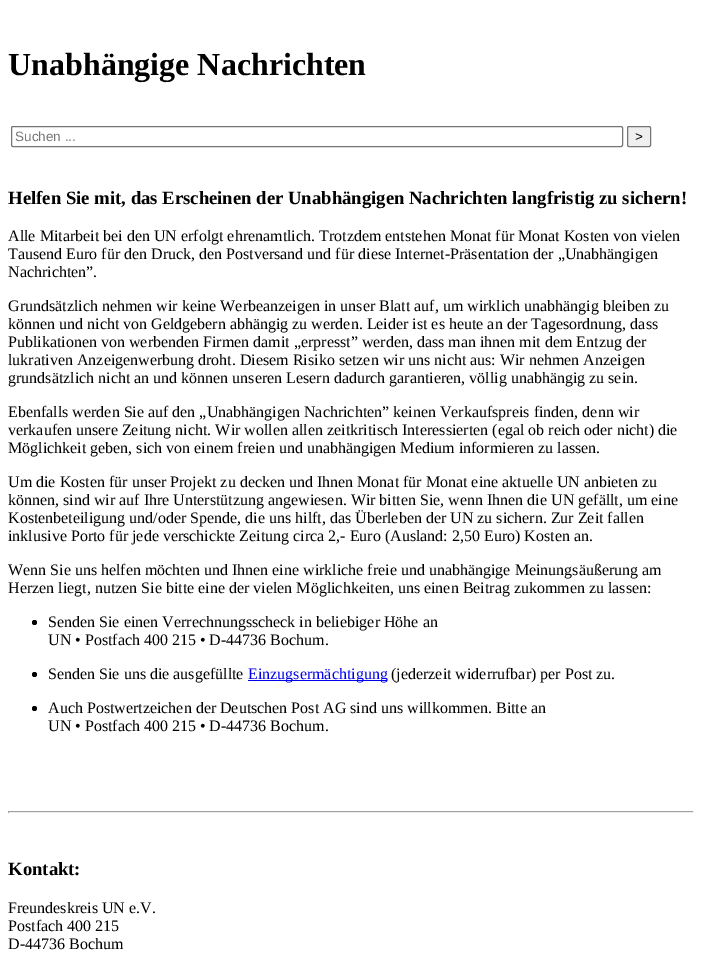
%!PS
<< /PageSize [702 971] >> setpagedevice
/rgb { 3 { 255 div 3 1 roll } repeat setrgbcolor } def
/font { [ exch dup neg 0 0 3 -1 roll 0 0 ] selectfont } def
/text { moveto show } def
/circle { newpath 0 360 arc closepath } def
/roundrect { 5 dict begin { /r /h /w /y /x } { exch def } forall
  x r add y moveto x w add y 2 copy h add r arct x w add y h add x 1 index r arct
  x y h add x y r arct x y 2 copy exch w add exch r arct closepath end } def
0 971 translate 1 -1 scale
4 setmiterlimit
255 255 255 rgb
0 0 702 971 rectfill
118 118 118 rgb
11.5 126.5 611 20 1.5 roundrect stroke
239 239 239 rgb
627.5 126.5 23 20 1.5 roundrect gsave fill grestore
118 118 118 rgb
stroke
0 0 0 rgb
34.5 622.5 2.5 circle fill
34.5 674.5 2.5 circle fill
0 0 238 rgb
248 680 139 1 rectfill
0 0 0 rgb
34.5 708.5 2.5 circle fill
159 159 159 rgb
8 811 686 1 rectfill
238 238 238 rgb
693 811 1 2 rectfill
8 812 686 1 rectfill
159 159 159 rgb
8 811 1 2 rectfill
/LiberationSerif-Bold 32 font
0 0 0 rgb
(Unabhängige Nachrichten) 8 75 text
/LiberationSans-Regular 13.5 font
117 117 117 rgb
(Suchen ...) 15 141 text
0 0 0 rgb
(>) 635 141 text
/LiberationSerif-Bold 18.7 font
(Helfen Sie mit, das Erscheinen der Unabhängigen Nachrichten langfristig zu sichern!) 8 204 text
/LiberationSerif-Regular 16 font
(Alle Mitarbeit bei den UN erfolgt ehrenamtlich. Trotzdem entstehen Monat für Monat Kosten von vielen) 8 241 text
(Tausend Euro für den Druck, den Postversand und für diese Internet-Präsentation der „Unabhängigen) 8 259 text
(Nachrichten”.) 8 277 text
(Grundsätzlich nehmen wir keine Werbeanzeigen in unser Blatt auf, um wirklich unabhängig bleiben zu) 8 311 text
(können und nicht von Geldgebern abhängig zu werden. Leider ist es heute an der Tagesordnung, dass) 8 329 text
(Publikationen von werbenden Firmen damit „erpresst” werden, dass man ihnen mit dem Entzug der) 8 347 text
(lukrativen Anzeigenwerbung droht. Diesem Risiko setzen wir uns nicht aus: Wir nehmen Anzeigen) 8 365 text
(grundsätzlich nicht an und können unseren Lesern dadurch garantieren, völlig unabhängig zu sein.) 8 383 text
(Ebenfalls werden Sie auf den „Unabhängigen Nachrichten” keinen Verkaufspreis finden, denn wir) 8 417 text
(verkaufen unsere Zeitung nicht. Wir wollen allen zeitkritisch Interessierten \(egal ob reich oder nicht\) die) 8 435 text
(Möglichkeit geben, sich von einem freien und unabhängigen Medium informieren zu lassen.) 8 453 text
(Um die Kosten für unser Projekt zu decken und Ihnen Monat für Monat eine aktuelle UN anbieten zu) 8 487 text
(können, sind wir auf Ihre Unterstützung angewiesen. Wir bitten Sie, wenn Ihnen die UN gefällt, um eine) 8 505 text
(Kostenbeteiligung und/oder Spende, die uns hilft, das Überleben der UN zu sichern. Zur Zeit fallen) 8 523 text
(inklusive Porto für jede verschickte Zeitung circa 2,- Euro \(Ausland: 2,50 Euro\) Kosten an.) 8 541 text
(Wenn Sie uns helfen möchten und Ihnen eine wirkliche freie und unabhängige Meinungsäußerung am) 8 575 text
(Herzen liegt, nutzen Sie bitte eine der vielen Möglichkeiten, uns einen Beitrag zukommen zu lassen:) 8 593 text
(Senden Sie einen Verrechnungsscheck in beliebiger Höhe an) 48 627 text
(UN • Postfach 400 215 • D-44736 Bochum.) 48 645 text
(Senden Sie uns die ausgefüllte) 48 679 text
0 0 238 rgb
(Einzugsermächtigung) 248 679 text
0 0 0 rgb
(\(jederzeit widerrufbar\) per Post zu.) 391 679 text
(Auch Postwertzeichen der Deutschen Post AG sind uns willkommen. Bitte an) 48 713 text
(UN • Postfach 400 215 • D-44736 Bochum.) 48 731 text
/LiberationSerif-Bold 18.7 font
(Kontakt:) 8 875 text
/LiberationSerif-Regular 16 font
(Freundeskreis UN e.V.) 8 913 text
(Postfach 400 215) 8 931 text
(D-44736 Bochum) 8 949 text
showpage
